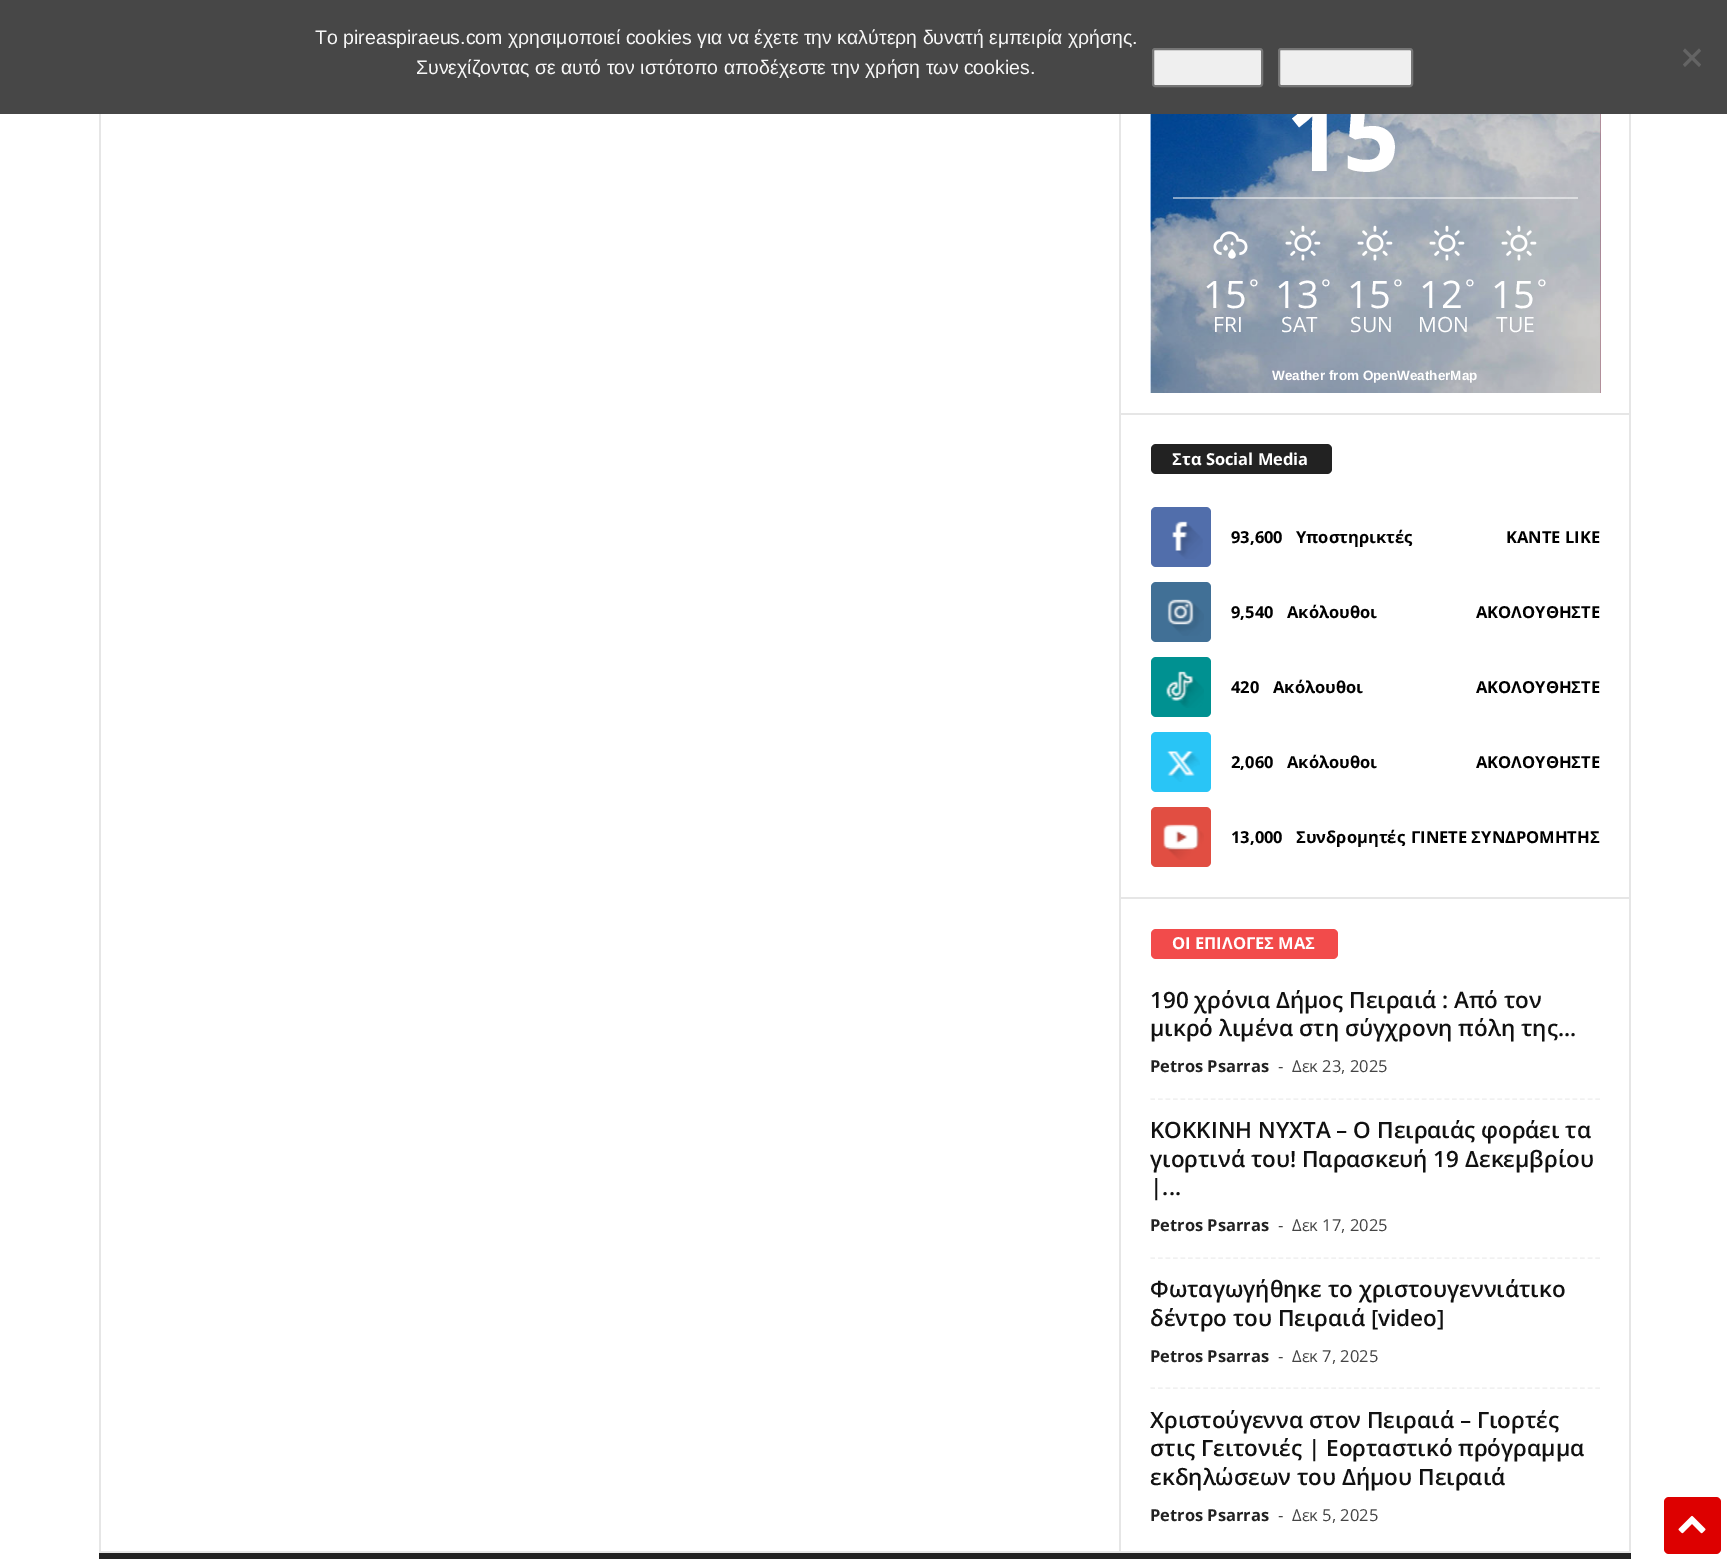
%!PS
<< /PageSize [1727 1559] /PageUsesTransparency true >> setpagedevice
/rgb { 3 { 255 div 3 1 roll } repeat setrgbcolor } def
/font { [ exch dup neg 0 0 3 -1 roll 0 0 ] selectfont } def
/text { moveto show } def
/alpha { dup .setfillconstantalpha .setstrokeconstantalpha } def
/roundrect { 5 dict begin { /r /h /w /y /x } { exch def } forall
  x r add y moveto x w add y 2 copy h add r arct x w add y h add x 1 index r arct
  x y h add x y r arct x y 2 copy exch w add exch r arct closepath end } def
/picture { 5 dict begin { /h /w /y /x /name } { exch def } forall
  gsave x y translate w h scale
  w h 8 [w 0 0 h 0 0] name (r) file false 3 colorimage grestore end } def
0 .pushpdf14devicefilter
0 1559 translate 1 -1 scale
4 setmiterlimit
255 255 255 rgb
0 0 1727 1559 rectfill
230 230 230 rgb
99 1551 1532 2 rectfill
99 114 2 1437 rectfill
1119 114 2 1437 rectfill
154 82 106 rgb
1600 114 1 279 rectfill
(img_01.rgb) 1150 114 451 279 picture
0.5 alpha
255 255 255 rgb
1173 197 405 2 rectfill
1 alpha
(img_02.rgb) 1213 231 35 28 picture
(img_03.rgb) 1285 225 36 36 picture
(img_04.rgb) 1357 225 36 36 picture
(img_05.rgb) 1429 225 36 36 picture
(img_06.rgb) 1501 225 36 36 picture
230 230 230 rgb
1121 413 508 2 rectfill
34 34 34 rgb
1151 444 181 30 5 roundrect fill
81 110 171 rgb
1151 507 60 60 5 roundrect fill
(img_07.rgb) 1172 521 31 38 picture
65 112 150 rgb
1151 582 60 60 5 roundrect fill
(img_08.rgb) 1167 599 37 37 picture
0 145 145 rgb
1151 657 60 60 5 roundrect fill
(img_09.rgb) 1166 671 38 37 picture
41 197 246 rgb
1151 732 60 60 5 roundrect fill
(img_10.rgb) 1166 751 34 31 picture
225 78 66 rgb
1151 807 60 60 5 roundrect fill
(img_11.rgb) 1163 824 41 36 picture
230 230 230 rgb
1121 897 508 2 rectfill
242 75 75 rgb
1151 929 187 30 5 roundrect fill
241 241 241 rgb
1.5 setlinewidth
[4.5 3.04] 0 setdash
1150.5 1099 moveto 450 0 rlineto stroke
1150.5 1258 moveto 450 0 rlineto stroke
1150.5 1388 moveto 450 0 rlineto stroke
230 230 230 rgb
1629 114 2 1437 rectfill
34 34 34 rgb
99 1553 1532 6 rectfill
221 0 0 rgb
1664 1497 57 57 5 roundrect fill
(img_12.rgb) 1678 1515 28 19 picture
/OpenSans-Bold 99 font
255 255 255 rgb
(15) 1286 171 text
71 71 71 rgb
0 0 1727 114 rectfill
100 100 100 rgb
1699 48.5 moveto 2 2.5 rlineto -16 16 rlineto -2 -2.5 rlineto closepath fill
1683 51 moveto 2 -2.5 rlineto 16 16 rlineto -2 2.5 rlineto closepath fill
239 239 239 rgb
1279 49 133 37 2 roundrect gsave fill grestore
118 118 118 rgb
2 setlinewidth
[] 0 setdash
stroke
239 239 239 rgb
1153 49 109 37 2 roundrect gsave fill grestore
118 118 118 rgb
stroke
/LiberationSans-Regular 19.5 font
247 247 247 rgb
(Συνεχίζοντας σε αυτό τον ιστότοπο αποδέχεστε την χρήση των cookies.) 416 74 text
(Το pireaspiraeus.com χρησιμοποιεί cookies για να έχετε την καλύτερη δυνατή εμπειρία χρήσης.) 315 44 text
/OpenSans-Regular 38 font
255 255 255 rgb
(15) 1203 308 text
/OpenSans-Regular 23 font
(°) 1249 296 text
/OpenSans-Regular 21 font
(FRI) 1213 332 text
/OpenSans-Regular 38 font
(13) 1275 308 text
/OpenSans-Regular 23 font
(°) 1321 296 text
/OpenSans-Regular 21 font
(SAT) 1281 332 text
/OpenSans-Regular 38 font
(15) 1347 308 text
/OpenSans-Regular 23 font
(°) 1393 296 text
/OpenSans-Regular 21 font
(SUN) 1350 332 text
/OpenSans-Regular 38 font
(12) 1419 308 text
/OpenSans-Regular 23 font
(°) 1465 296 text
/OpenSans-Regular 21 font
(MON) 1418 332 text
/OpenSans-Regular 38 font
(15) 1491 308 text
/OpenSans-Regular 23 font
(°) 1537 296 text
/OpenSans-Regular 21 font
(TUE) 1496 332 text
/LiberationSans-Bold 13.5 font
(Weather from OpenWeatherMap) 1272 380 text
/OpenSans-Bold 16.5 font
(Στα Social Media) 1172 465 text
0 0 0 rgb
(93,600) 1231 543 text
(Υποστηρικτές) 1296 543 text
(ΚΑΝΤΕ LIKE) 1506 543 text
(9,540) 1231 618 text
(Ακόλουθοι) 1287 618 text
(ΑΚΟΛΟΥΘΗΣΤΕ) 1476 618 text
(420) 1231 693 text
(Ακόλουθοι) 1273 693 text
(ΑΚΟΛΟΥΘΗΣΤΕ) 1476 693 text
(2,060) 1231 768 text
(Ακόλουθοι) 1287 768 text
(ΑΚΟΛΟΥΘΗΣΤΕ) 1476 768 text
(13,000) 1231 843 text
(Συνδρομητές) 1296 843 text
(ΓΙΝΕΤΕ ΣΥΝΔΡΟΜΗΤΗΣ) 1411 843 text
255 255 255 rgb
(ΟΙ ΕΠΙΛΟΓΕΣ ΜΑΣ) 1172 949 text
/OpenSans-SemiBold 22.5 font
17 17 17 rgb
(190 χρόνια Δήμος Πειραιά : Από τον) 1150 1008 text
(μικρό λιμένα στη σύγχρονη πόλη της...) 1150 1036 text
/OpenSans-Bold 16.5 font
34 34 34 rgb
(Petros Psarras) 1150 1072 text
/OpenSans-Regular 16.5 font
68 68 68 rgb
(-) 1278 1072 text
(Δεκ 23, 2025) 1292 1072 text
/OpenSans-SemiBold 22.5 font
17 17 17 rgb
(ΚΟΚΚΙΝΗ ΝΥΧΤΑ – Ο Πειραιάς φοράει τα) 1150 1138 text
(γιορτινά του! Παρασκευή 19 Δεκεμβρίου) 1150 1167 text
(|...) 1150 1195 text
/OpenSans-Bold 16.5 font
34 34 34 rgb
(Petros Psarras) 1150 1231 text
/OpenSans-Regular 16.5 font
68 68 68 rgb
(-) 1278 1231 text
(Δεκ 17, 2025) 1292 1231 text
/OpenSans-SemiBold 22.5 font
17 17 17 rgb
(Φωταγωγήθηκε το χριστουγεννιάτικο) 1150 1297 text
(δέντρο του Πειραιά [video]) 1150 1326 text
/OpenSans-Bold 16.5 font
34 34 34 rgb
(Petros Psarras) 1150 1362 text
/OpenSans-Regular 16.5 font
68 68 68 rgb
(-) 1278 1362 text
(Δεκ 7, 2025) 1292 1362 text
/OpenSans-SemiBold 22.5 font
17 17 17 rgb
(Χριστούγεννα στον Πειραιά – Γιορτές) 1150 1428 text
(στις Γειτονιές | Εορταστικό πρόγραμμα) 1150 1456 text
(εκδηλώσεων του Δήμου Πειραιά) 1150 1485 text
/OpenSans-Bold 16.5 font
34 34 34 rgb
(Petros Psarras) 1150 1521 text
/OpenSans-Regular 16.5 font
68 68 68 rgb
(-) 1278 1521 text
(Δεκ 5, 2025) 1292 1521 text
.poppdf14devicefilter showpage
